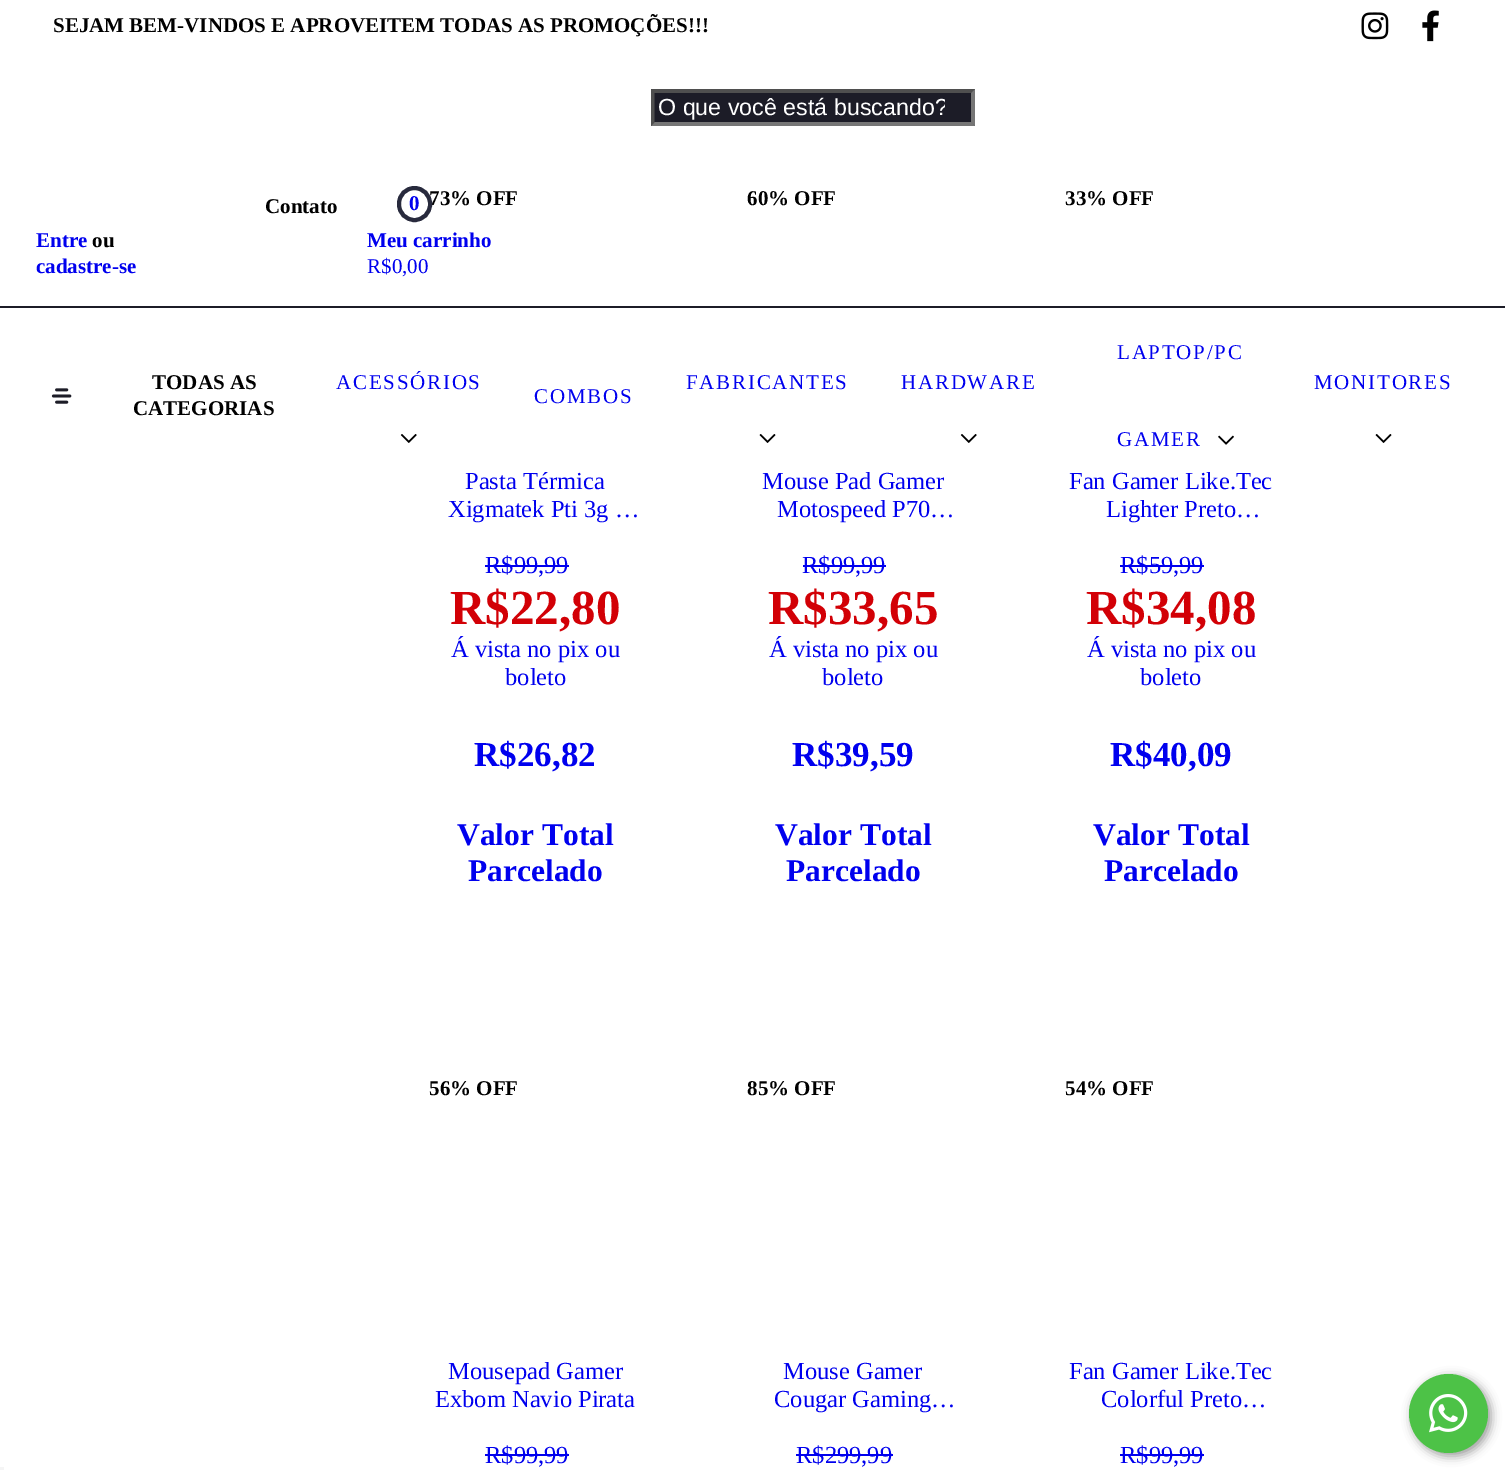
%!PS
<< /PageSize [1505 1470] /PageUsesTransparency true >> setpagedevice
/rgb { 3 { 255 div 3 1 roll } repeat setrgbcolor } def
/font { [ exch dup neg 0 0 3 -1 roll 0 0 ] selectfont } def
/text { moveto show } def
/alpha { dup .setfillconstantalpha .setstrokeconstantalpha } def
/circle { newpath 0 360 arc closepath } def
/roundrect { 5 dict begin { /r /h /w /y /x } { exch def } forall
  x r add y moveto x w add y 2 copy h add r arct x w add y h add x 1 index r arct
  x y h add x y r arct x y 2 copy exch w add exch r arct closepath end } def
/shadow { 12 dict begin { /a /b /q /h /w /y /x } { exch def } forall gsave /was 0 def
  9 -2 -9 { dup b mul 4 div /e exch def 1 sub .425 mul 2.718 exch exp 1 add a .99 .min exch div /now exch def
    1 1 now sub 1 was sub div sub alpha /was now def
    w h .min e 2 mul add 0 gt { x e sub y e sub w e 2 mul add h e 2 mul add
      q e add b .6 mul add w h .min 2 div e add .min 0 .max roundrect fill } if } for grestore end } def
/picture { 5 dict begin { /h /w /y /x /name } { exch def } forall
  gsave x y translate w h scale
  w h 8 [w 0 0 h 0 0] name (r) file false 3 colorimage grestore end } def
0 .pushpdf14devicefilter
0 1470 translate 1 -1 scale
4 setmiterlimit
255 255 255 rgb
0 0 1505 1470 rectfill
(img_01.rgb) 1361 12 28 28 picture
(img_02.rgb) 1422 10 17 32 picture
28 28 39 rgb
651 89 324 37 rectfill
79 79 79 rgb
651 89 moveto 324 0 rlineto -4 4 rlineto -317 0 rlineto closepath fill
118 118 118 rgb
975 89 moveto 0 37 rlineto -4 -3.5 rlineto 0 -29.5 rlineto closepath fill
975 126 moveto -324 0 rlineto 3 -4 rlineto 317 0 rlineto closepath fill
79 79 79 rgb
651 126 moveto 0 -37 rlineto 3.5 4 rlineto 0 29.5 rlineto closepath fill
28 28 39 rgb
0 306 1505 2 rectfill
(img_03.rgb) 51 388 21 16 picture
(img_04.rgb) 400 434 17 9 picture
(img_05.rgb) 759 434 17 9 picture
(img_04.rgb) 960 434 17 9 picture
(img_06.rgb) 1218 435 16 10 picture
(img_05.rgb) 1375 434 17 9 picture
245 245 245 rgb
0 1467 4 3 rectfill
0 0 238 rgb
485 565 84 2 rectfill
803 565 83 2 rectfill
1120 565 84 2 rectfill
485 1454 84 2 rectfill
796 1454 97 2 rectfill
1120 1454 84 2 rectfill
0 0 0 rgb
1412 1377 79 79 39.5 5 0.4 shadow
77 194 71 rgb
1448.5 1413.5 39.5 circle fill
(img_07.rgb) 1429 1394 39 39 picture
/LiberationSerif-Bold 21 font
0 0 0 rgb
(SEJAM BEM-VINDOS E APROVEITEM TODAS AS PROMOÇÕES!!!) 53 32 text
gsave
658 95 287 26 rectclip
/LiberationSans-Regular 23.25 font
255 255 255 rgb
(O que você está buscando?) 658 115 text
grestore
(Contato) 265 213 text
0 0 238 rgb
(Meu carrinho) 367 247 text
/LiberationSerif-Regular 21 font
(R$0,00) 367 273 text
/LiberationSerif-Bold 21 font
(Entre) 36 247 text
0 0 0 rgb
(ou) 92 247 text
0 0 238 rgb
(cadastre-se) 36 273 text
0 0 0 rgb
(TODAS AS) 152 389 text
(CATEGORIAS) 133 415 text
/LiberationSerif-Regular 21 font
0 0 238 rgb
336 389 moveto 1.75 0 (ACESSÓRIOS) ashow
686 389 moveto 1.75 0 (FABRICANTES) ashow
901 389 moveto 1.75 0 (HARDWARE) ashow
1117 359 moveto 1.75 0 (LAPTOP/PC) ashow
1117 446 moveto 1.75 0 (GAMER) ashow
1314 389 moveto 1.75 0 (MONITORES) ashow
534 403 moveto 1.75 0 (COMBOS) ashow
/LiberationSerif-Bold 21 font
0 0 0 rgb
(73% OFF) 429 205 text
255 255 255 rgb
399 188 31 32 15.5 roundrect gsave fill grestore
40 42 61 rgb
4 setlinewidth
stroke
0 0 238 rgb
(0) 409 210 text
/LiberationSerif-Regular 24.5 font
(Pasta Térmica) 465 489 text
(Xigmatek Pti 3g …) 448 517 text
(R$99,99) 485 573 text
/LiberationSerif-Bold 49 font
210 0 6 rgb
(R$22,80) 450 624 text
/LiberationSerif-Regular 24.5 font
0 0 238 rgb
(Á vista no pix ou) 451 657 text
(boleto) 505 685 text
/LiberationSerif-Bold 35 font
(R$26,82) 474 766 text
/LiberationSerif-Bold 31.5 font
(Valor Total) 457 845 text
(Parcelado) 468 881 text
/LiberationSerif-Bold 21 font
0 0 0 rgb
(60% OFF) 747 205 text
/LiberationSerif-Regular 24.5 font
0 0 238 rgb
(Mouse Pad Gamer) 762 489 text
(Motospeed P70…) 777 517 text
(R$99,99) 802 573 text
/LiberationSerif-Bold 49 font
210 0 6 rgb
(R$33,65) 768 624 text
/LiberationSerif-Regular 24.5 font
0 0 238 rgb
(Á vista no pix ou) 769 657 text
(boleto) 822 685 text
/LiberationSerif-Bold 35 font
(R$39,59) 792 766 text
/LiberationSerif-Bold 31.5 font
(Valor Total) 775 845 text
(Parcelado) 786 881 text
/LiberationSerif-Bold 21 font
0 0 0 rgb
(33% OFF) 1065 205 text
/LiberationSerif-Regular 24.5 font
0 0 238 rgb
(Fan Gamer Like.Tec) 1069 489 text
(Lighter Preto…) 1106 517 text
(R$59,99) 1120 573 text
/LiberationSerif-Bold 49 font
210 0 6 rgb
(R$34,08) 1086 624 text
/LiberationSerif-Regular 24.5 font
0 0 238 rgb
(Á vista no pix ou) 1087 657 text
(boleto) 1140 685 text
/LiberationSerif-Bold 35 font
(R$40,09) 1110 766 text
/LiberationSerif-Bold 31.5 font
(Valor Total) 1093 845 text
(Parcelado) 1104 881 text
/LiberationSerif-Bold 21 font
0 0 0 rgb
(56% OFF) 429 1095 text
/LiberationSerif-Regular 24.5 font
0 0 238 rgb
(Mousepad Gamer) 448 1379 text
(Exbom Navio Pirata) 435 1407 text
(R$99,99) 485 1463 text
/LiberationSerif-Bold 21 font
0 0 0 rgb
(85% OFF) 747 1095 text
/LiberationSerif-Regular 24.5 font
0 0 238 rgb
(Mouse Gamer) 783 1379 text
(Cougar Gaming…) 774 1407 text
(R$299,99) 796 1463 text
/LiberationSerif-Bold 21 font
0 0 0 rgb
(54% OFF) 1065 1095 text
/LiberationSerif-Regular 24.5 font
0 0 238 rgb
(Fan Gamer Like.Tec) 1069 1379 text
(Colorful Preto…) 1101 1407 text
(R$99,99) 1120 1463 text
.poppdf14devicefilter showpage
